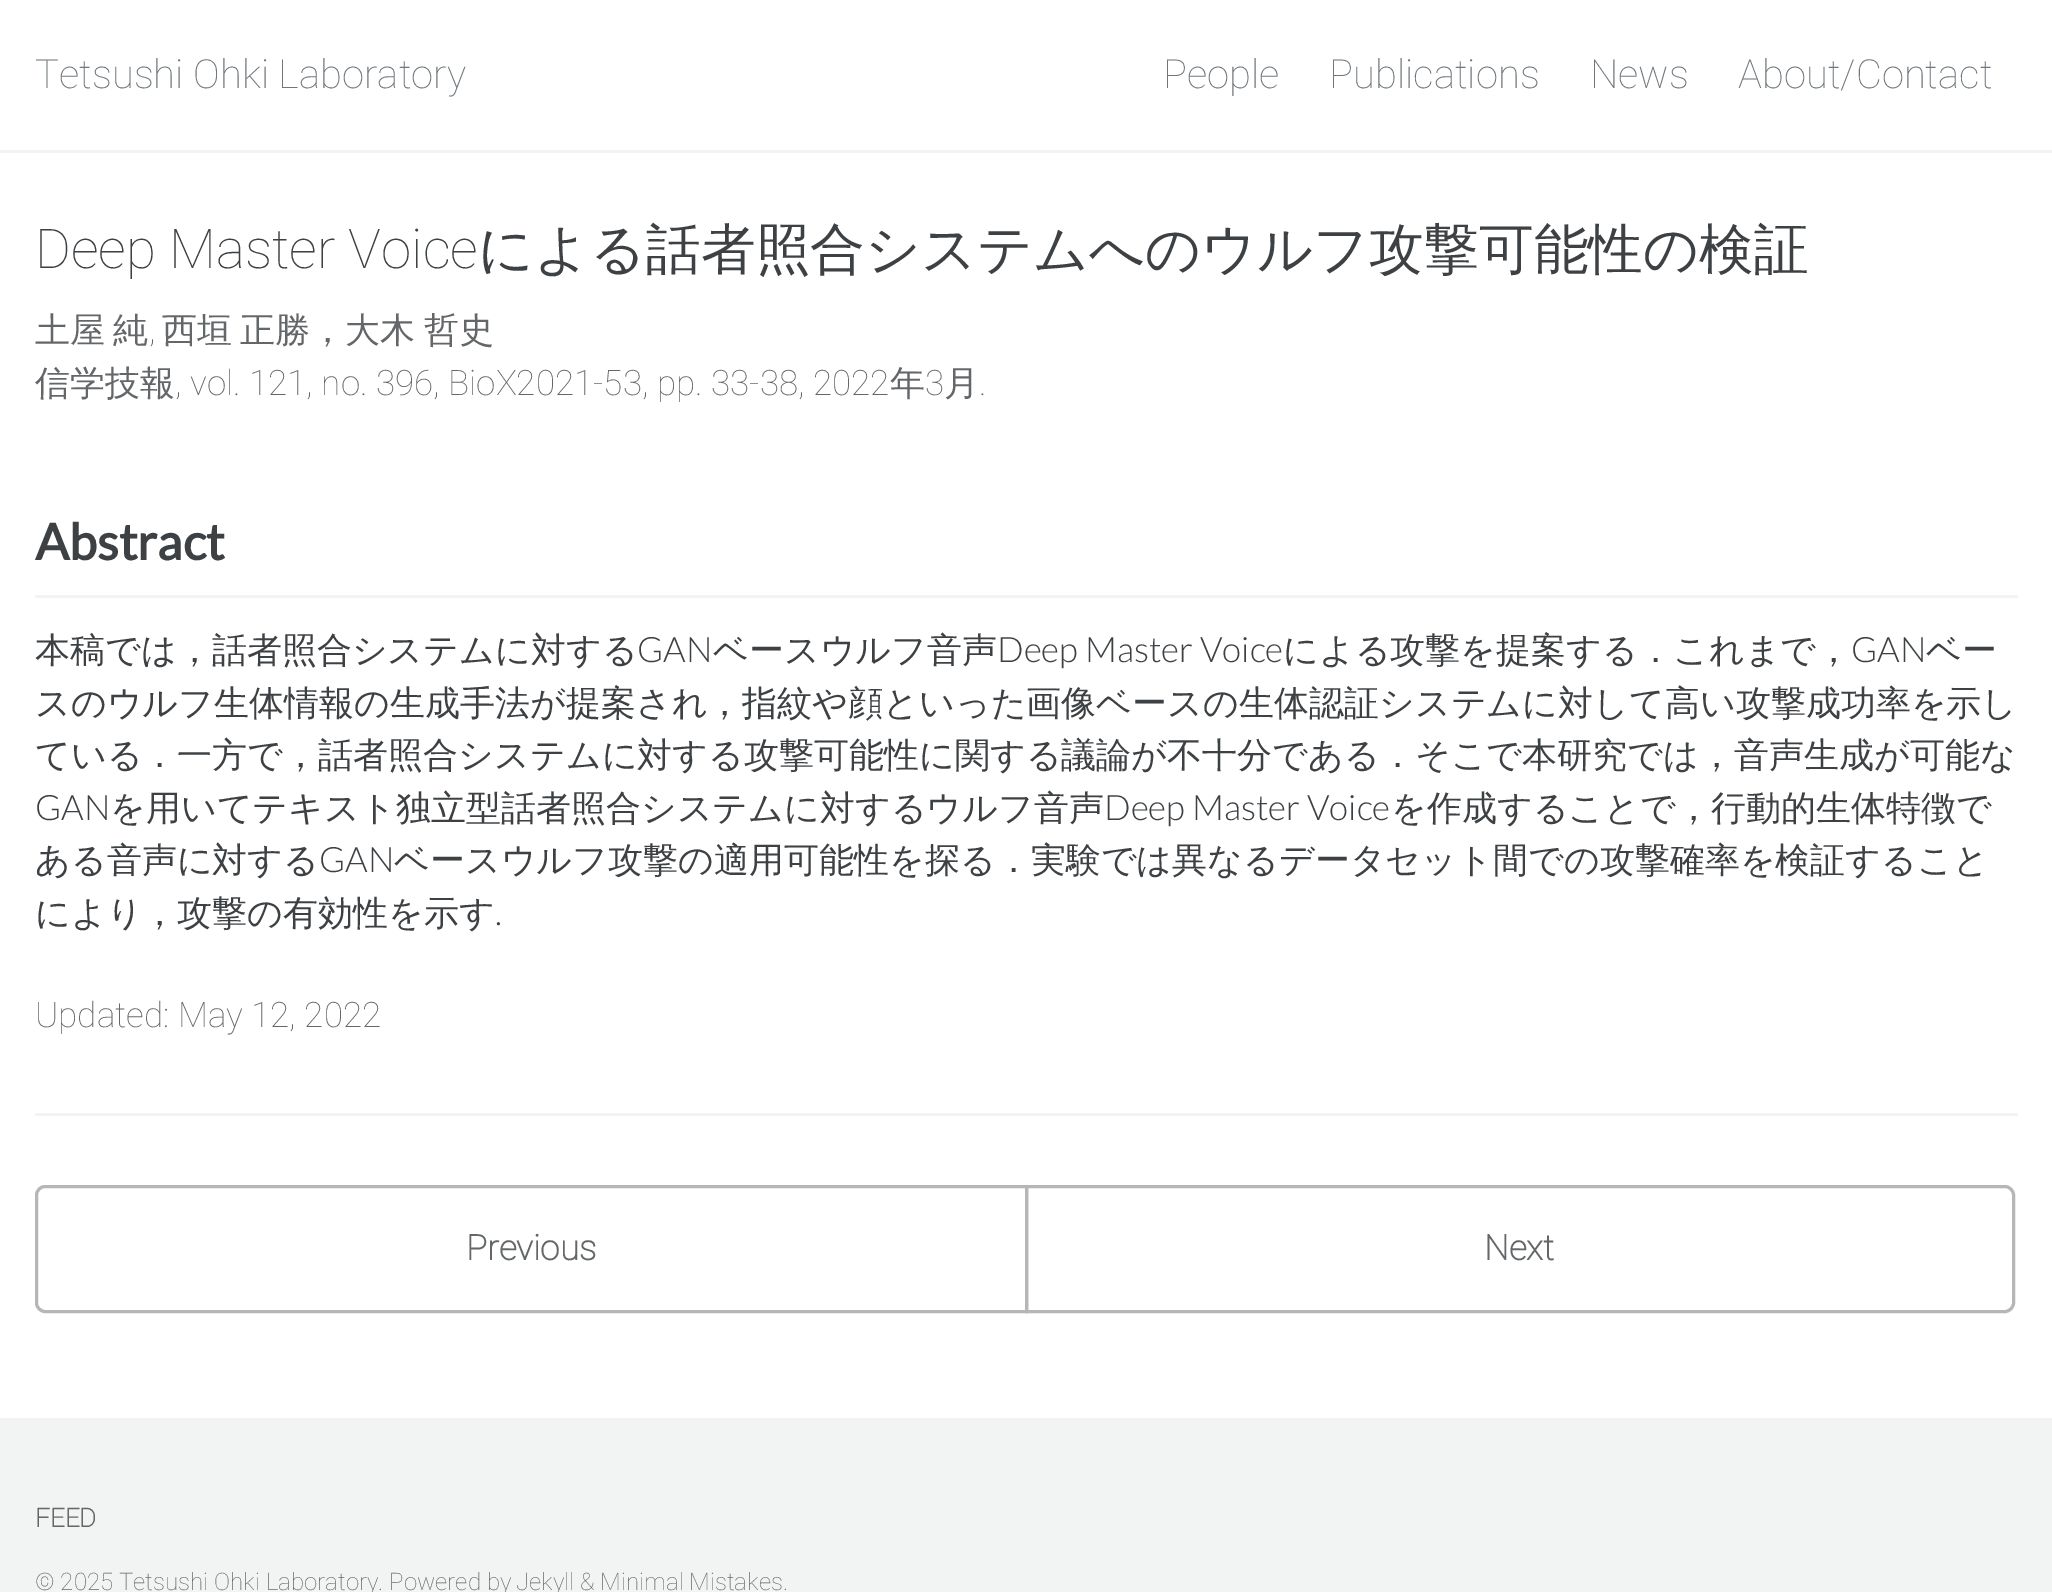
%!PS
<< /PageSize [2052 1592] >> setpagedevice
/rgb { 3 { 255 div 3 1 roll } repeat setrgbcolor } def
/font { [ exch dup neg 0 0 3 -1 roll 0 0 ] selectfont } def
/text { moveto show } def
0 1592 translate 1 -1 scale
4 setmiterlimit
255 255 255 rgb
0 0 2052 1592 rectfill
242 243 243 rgb
0 150 2052 3 rectfill
35 595 1983 3 rectfill
35 1113 1983 3 rectfill
182 182 182 rgb
3 setlinewidth
45 1186.5 moveto 981.5 0 rlineto 0 125 rlineto -981.5 0 rlineto -4.5 0 -8.5 -4 -8.5 -8.5 rcurveto 0 -108 rlineto 0 -4.5 4 -8.5 8.5 -8.5 rcurveto closepath stroke
1026.5 1186.5 moveto 978.5 0 rlineto 4.5 0 8.5 4 8.5 8.5 rcurveto 0 108 rlineto 0 4.5 -4 8.5 -8.5 8.5 rcurveto -978.5 0 rlineto closepath stroke
242 243 243 rgb
0 1418 2052 174 rectfill
/Roboto-Thin 40 font
111 119 125 rgb
(Tetsushi Ohki Laboratory) 35 88 text
(People) 1163 88 text
(Publications) 1329 88 text
(News) 1590 88 text
(About/Contact) 1738 88 text
/Roboto-Thin 54.75 font
61 65 68 rgb
(Deep Master Voice) 35 268 text
/WenQuanYiZenHei-Medium 54.75 font
(による話者照合システムへのウルフ攻撃可能性の検証) 478 268 text
/WenQuanYiZenHei-Medium 35 font
100 103 105 rgb
35 342 moveto -2 0 32 (土屋 純) widthshow
/Roboto-Thin 35 font
(,) 149 342 text
/WenQuanYiZenHei-Medium 35 font
162 342 moveto -2 0 32 (西垣 正勝，大木 哲史) widthshow
(信学技報) 35 395 text
/Roboto-Thin 35 font
(, vol. 121, no. 396, BioX2021-53, pp. 33-38, 2022) 175 395 text
/WenQuanYiZenHei-Medium 35 font
(年) 890 395 text
/Roboto-Thin 35 font
(3) 925 395 text
/WenQuanYiZenHei-Medium 35 font
(月) 944 395 text
/Roboto-Thin 35 font
(.) 979 395 text
/Lato-Bold 50 font
61 65 68 rgb
(Abstract) 35 560 text
/WenQuanYiZenHei-Medium 35 font
(本稿では，話者照合システムに対する) 35 662 text
/Lato-Light 35 font
(GAN) 637 662 text
/WenQuanYiZenHei-Medium 35 font
(ベースウルフ音声) 713 662 text
/Lato-Light 35 font
(Deep Master Voice) 997 662 text
/WenQuanYiZenHei-Medium 35 font
(による攻撃を提案する．これまで，) 1283 662 text
/Lato-Light 35 font
(GAN) 1851 662 text
/WenQuanYiZenHei-Medium 35 font
(ベー) 1926 662 text
(スのウルフ生体情報の生成手法が提案され，指紋や顔といった画像ベースの生体認証システムに対して高い攻撃成功率を示し) 35 715 text
(ている．一方で，話者照合システムに対する攻撃可能性に関する議論が不十分である．そこで本研究では，音声生成が可能な) 35 767 text
/Lato-Light 35 font
(GAN) 35 820 text
/WenQuanYiZenHei-Medium 35 font
(を用いてテキスト独立型話者照合システムに対するウルフ音声) 110 820 text
/Lato-Light 35 font
(Deep Master Voice) 1104 820 text
/WenQuanYiZenHei-Medium 35 font
(を作成することで，行動的生体特徴で) 1391 820 text
(ある音声に対する) 35 872 text
/Lato-Light 35 font
(GAN) 319 872 text
/WenQuanYiZenHei-Medium 35 font
(ベースウルフ攻撃の適用可能性を探る．実験では異なるデータセット間での攻撃確率を検証すること) 394 872 text
(により，攻撃の有効性を示す) 35 925 text
/Lato-Light 35 font
(.) 495 925 text
/Roboto-Thin 35 font
100 103 105 rgb
(Updated: May 12, 2022) 35 1027 text
/Roboto-Bold 35 font
(Previous) 466 1260 text
(Next) 1484 1260 text
/Roboto-Bold 26 font
(FEED) 35 1527 text
/Roboto-Thin 24.1 font
(© 2025 Tetsushi Ohki Laboratory. Powered by) 35 1590 text
(Jekyll & Minimal Mistakes.) 516 1590 text
showpage
